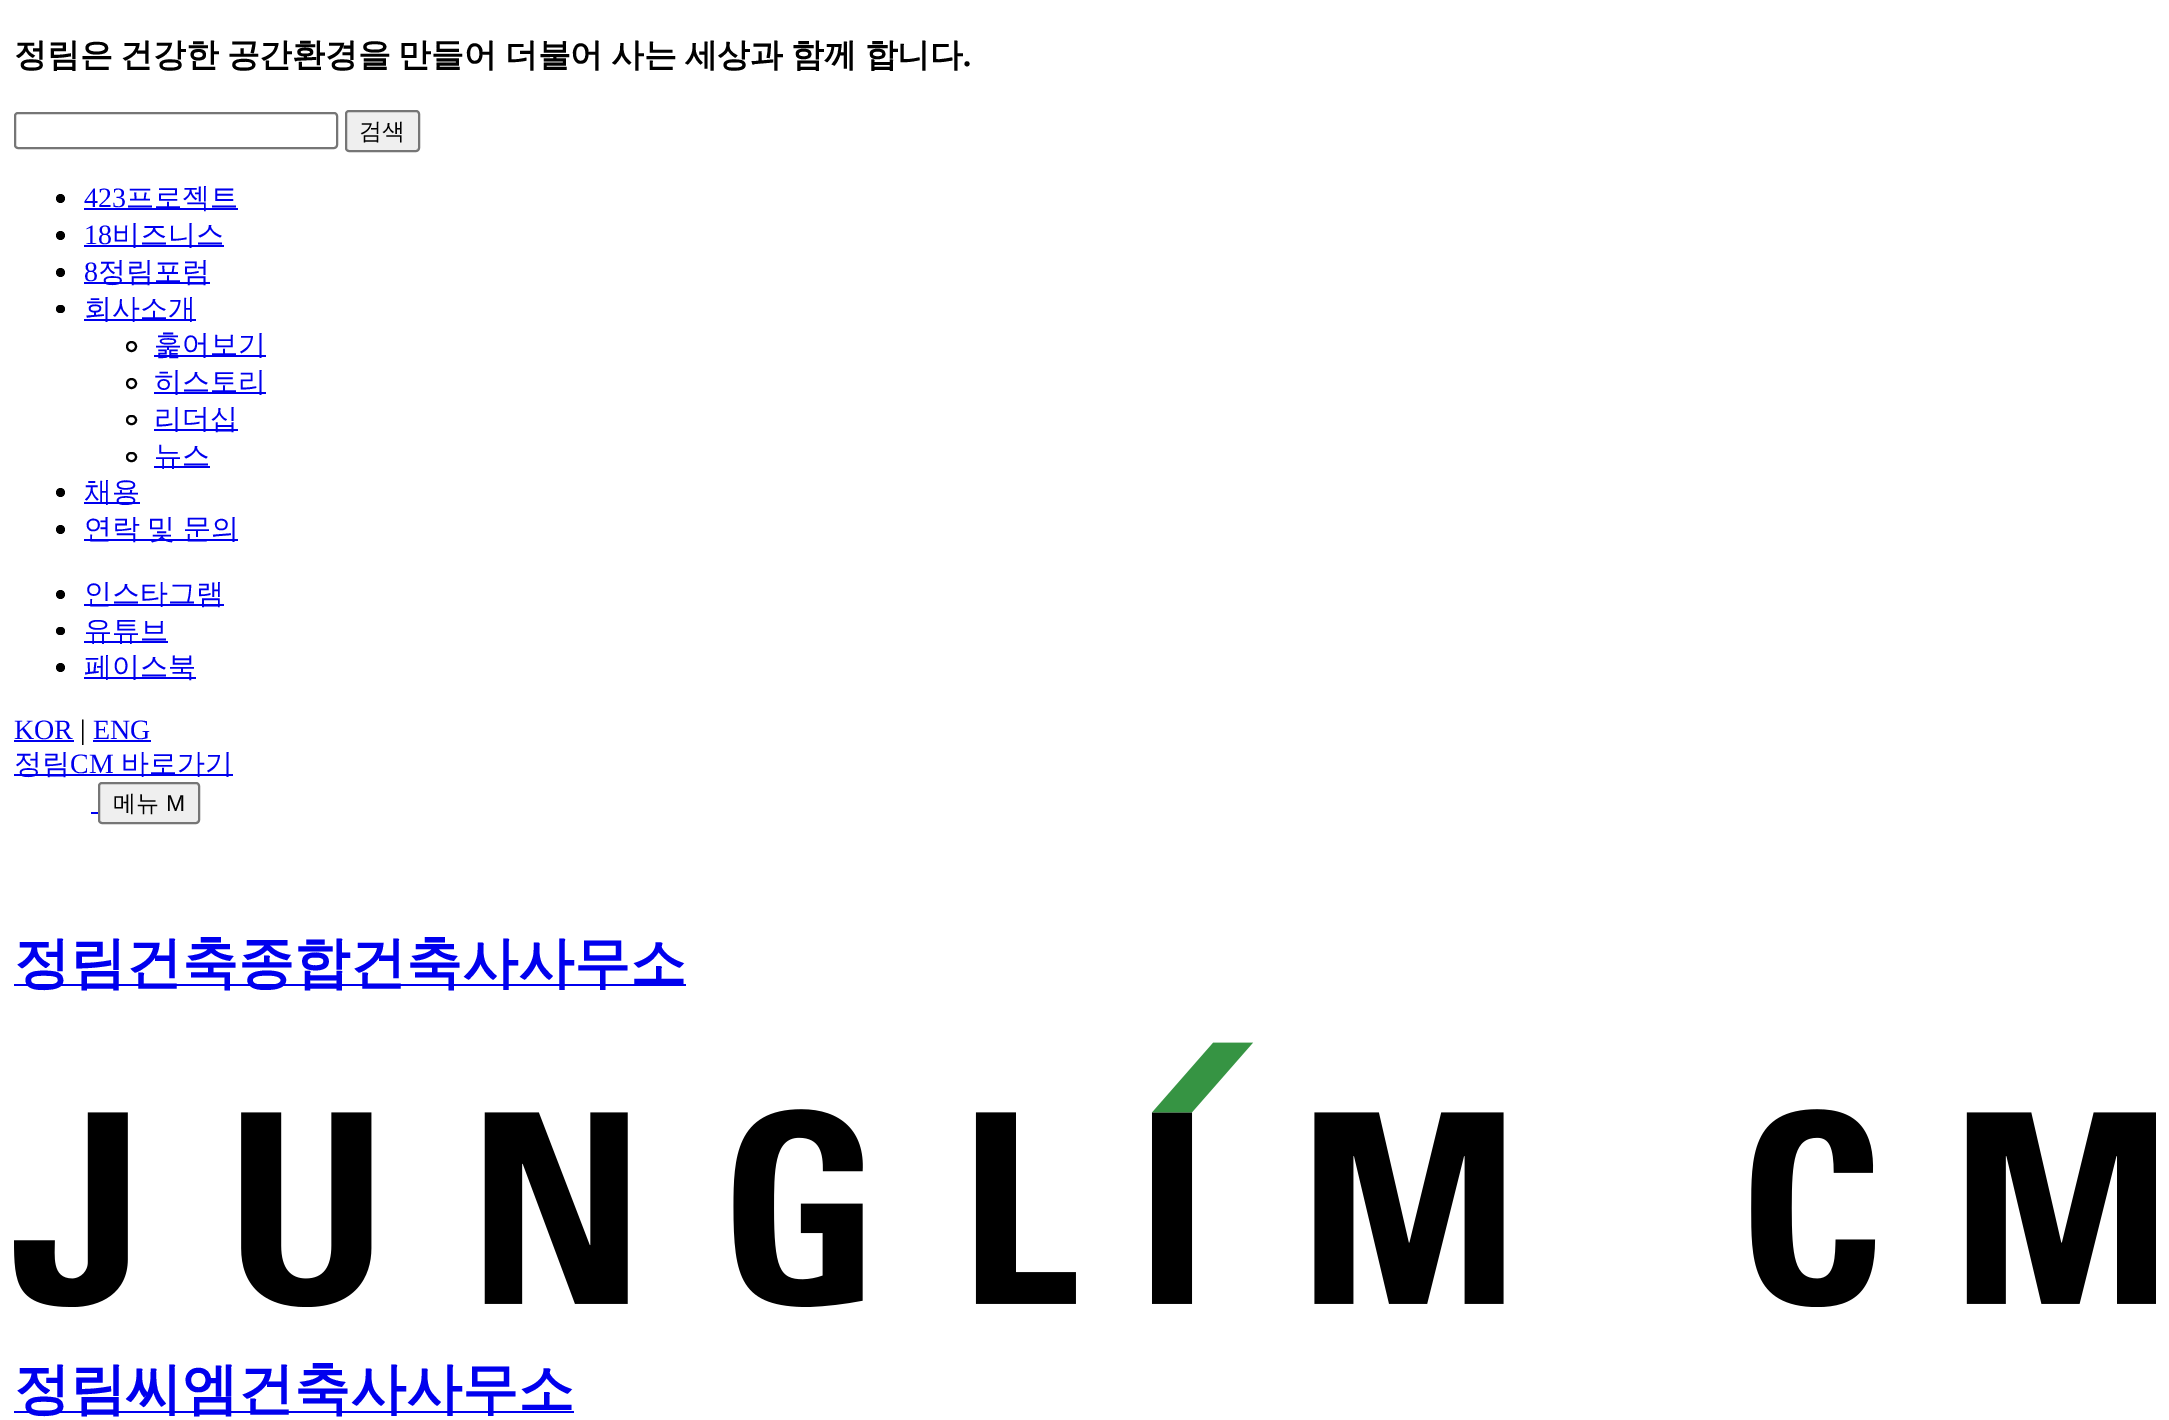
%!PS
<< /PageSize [2169 1420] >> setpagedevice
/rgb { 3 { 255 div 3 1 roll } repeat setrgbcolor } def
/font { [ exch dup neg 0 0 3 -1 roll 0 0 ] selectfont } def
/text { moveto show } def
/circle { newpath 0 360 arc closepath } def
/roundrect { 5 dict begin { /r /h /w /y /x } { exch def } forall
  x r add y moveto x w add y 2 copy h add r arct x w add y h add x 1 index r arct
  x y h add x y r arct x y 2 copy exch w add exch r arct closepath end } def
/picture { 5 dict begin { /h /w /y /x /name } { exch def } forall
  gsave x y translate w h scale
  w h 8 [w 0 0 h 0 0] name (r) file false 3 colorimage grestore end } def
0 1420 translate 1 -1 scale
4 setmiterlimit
255 255 255 rgb
0 0 2169 1420 rectfill
118 118 118 rgb
2 setlinewidth
15 113 322 35 3 roundrect stroke
239 239 239 rgb
346 111 73 40 3 roundrect gsave fill grestore
118 118 118 rgb
stroke
0 0 0 rgb
60.5 198.5 4.5 circle fill
0 0 238 rgb
84 208 154 2 rectfill
0 0 0 rgb
60.5 235.5 4.5 circle fill
0 0 238 rgb
84 245 140 2 rectfill
0 0 0 rgb
60.5 272.5 4.5 circle fill
0 0 238 rgb
84 282 126 2 rectfill
0 0 0 rgb
56 305 9 8 4 roundrect fill
0 0 238 rgb
84 319 112 2 rectfill
0 0 0 rgb
131.5 346.5 4.5 circle stroke
0 0 238 rgb
154 355 112 2 rectfill
0 0 0 rgb
131.5 383.5 4.5 circle stroke
0 0 238 rgb
154 392 112 2 rectfill
0 0 0 rgb
127 416 9 8 4 roundrect stroke
0 0 238 rgb
154 429 84 2 rectfill
0 0 0 rgb
127 453 9 8 4 roundrect stroke
0 0 238 rgb
154 466 56 2 rectfill
0 0 0 rgb
60.5 492.5 4.5 circle fill
0 0 238 rgb
84 502 56 2 rectfill
0 0 0 rgb
60.5 529.5 4.5 circle fill
0 0 238 rgb
84 539 154 2 rectfill
0 0 0 rgb
60.5 594.5 4.5 circle fill
0 0 238 rgb
84 604 140 2 rectfill
0 0 0 rgb
56 627 9 8 4 roundrect fill
0 0 238 rgb
84 641 84 2 rectfill
0 0 0 rgb
60.5 667.5 4.5 circle fill
0 0 238 rgb
84 677 112 2 rectfill
14 740 60 2 rectfill
93 740 58 2 rectfill
14 774 219 2 rectfill
91 812 7 2 rectfill
239 239 239 rgb
99 783 100 40 3 roundrect gsave fill grestore
118 118 118 rgb
stroke
0 0 238 rgb
14 984 672 2 rectfill
(img_01.rgb) 14 1042 2142 265 picture
14 1411 560 2 rectfill
/WenQuanYiZenHei-Bold 32.75 font
0 0 0 rgb
14 66 moveto -1.75 0 32 (정림은 건강한 공간환경을 만들어 더불어 사는 세상과 함께 합니다) widthshow
/LiberationSerif-Bold 32.75 font
(.) 963 66 text
/WenQuanYiZenHei-Medium 23 font
(검색) 359 139 text
/LiberationSerif-Regular 28 font
0 0 238 rgb
(423) 84 207 text
/WenQuanYiZenHei-Medium 28 font
(프로젝트) 126 207 text
/LiberationSerif-Regular 28 font
(18) 84 244 text
/WenQuanYiZenHei-Medium 28 font
(비즈니스) 112 244 text
/LiberationSerif-Regular 28 font
(8) 84 281 text
/WenQuanYiZenHei-Medium 28 font
(정림포럼) 98 281 text
(회사소개) 84 318 text
(훑어보기) 154 354 text
(히스토리) 154 391 text
(리더십) 154 428 text
(뉴스) 154 465 text
(채용) 84 501 text
84 538 moveto -1 0 32 (연락 및 문의) widthshow
(인스타그램) 84 603 text
(유튜브) 84 640 text
(페이스북) 84 676 text
/LiberationSerif-Regular 28 font
(KOR) 14 739 text
0 0 0 rgb
(|) 80 739 text
0 0 238 rgb
(ENG) 93 739 text
/WenQuanYiZenHei-Medium 28 font
(정림) 14 773 text
/LiberationSerif-Regular 28 font
(CM) 70 773 text
/WenQuanYiZenHei-Medium 28 font
(바로가기) 121 773 text
/WenQuanYiZenHei-Medium 23 font
0 0 0 rgb
(메뉴) 113 811 text
/LiberationSans-Regular 23 font
(M) 166 811 text
/WenQuanYiZenHei-Bold 56 font
0 0 238 rgb
(정림건축종합건축사사무소) 14 982 text
(정림씨엠건축사사무소) 14 1408 text
showpage
